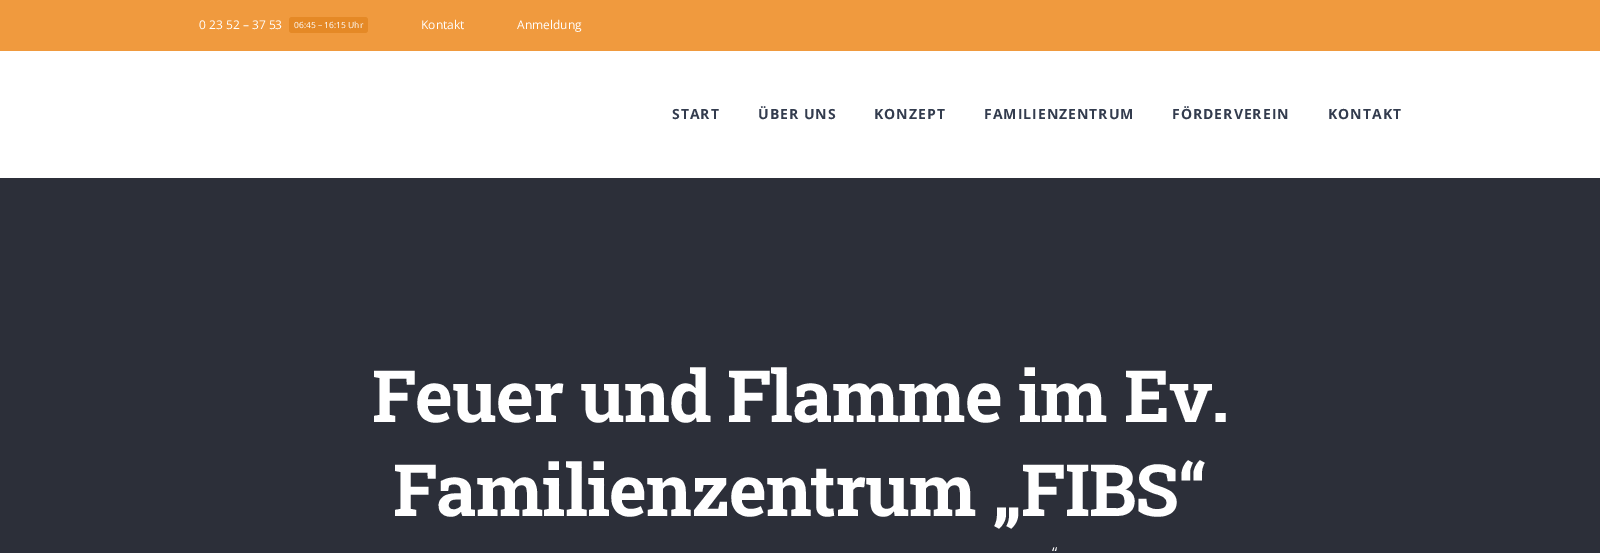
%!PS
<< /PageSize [1600 553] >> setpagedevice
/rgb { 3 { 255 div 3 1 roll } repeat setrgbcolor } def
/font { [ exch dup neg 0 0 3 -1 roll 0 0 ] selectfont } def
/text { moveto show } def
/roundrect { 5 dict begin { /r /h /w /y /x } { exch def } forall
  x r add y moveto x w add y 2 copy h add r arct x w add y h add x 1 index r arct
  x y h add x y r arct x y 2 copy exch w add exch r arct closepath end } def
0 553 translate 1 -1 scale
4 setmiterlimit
255 255 255 rgb
0 0 1600 553 rectfill
240 154 62 rgb
0 0 1600 51 rectfill
229 137 38 rgb
289 17 79 16 3 roundrect fill
44 47 57 rgb
0 178 1600 375 rectfill
/OpenSans-Regular 12 font
255 255 255 rgb
(0 23 52 – 37 53) 199 29 text
/OpenSans-Regular 8.5 font
(06:45 – 16:15 Uhr) 294 28 text
/OpenSans-Regular 12 font
(Kontakt) 421 29 text
(Anmeldung) 517 29 text
/OpenSans-Bold 14 font
51 60 78 rgb
672 119 moveto 1 0 (START) ashow
758 119 moveto 1 0 (ÜBER UNS) ashow
874 119 moveto 1 0 (KONZEPT) ashow
984 119 moveto 1 0 (FAMILIENZENTRUM) ashow
1172 119 moveto 1 0 (FÖRDERVEREIN) ashow
1328 119 moveto 1 0 (KONTAKT) ashow
/RobotoSlab-Bold 72 font
255 255 255 rgb
372 422 moveto -1 0 (Feuer und Flamme im Ev.) ashow
393 516 moveto -1 0 (Familienzentrum „FIBS“) ashow
/OpenSans-Regular 15 font
(“) 1052 558 text
showpage
